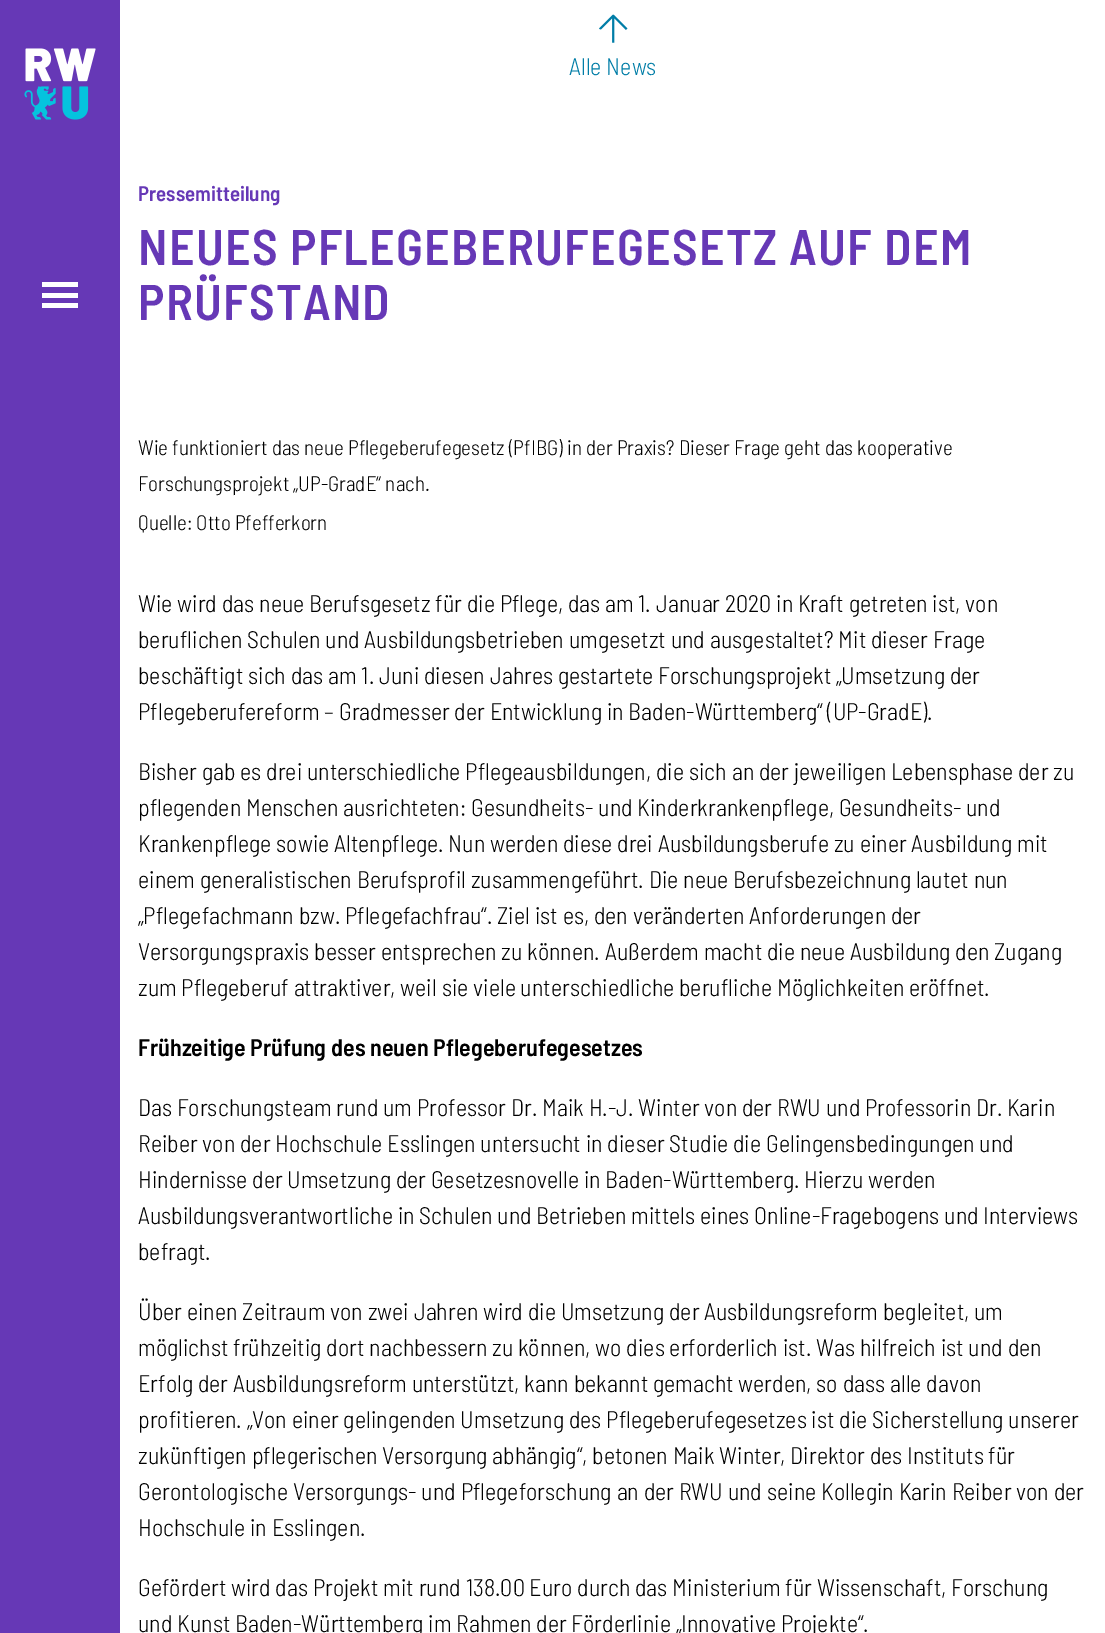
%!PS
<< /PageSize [1105 1633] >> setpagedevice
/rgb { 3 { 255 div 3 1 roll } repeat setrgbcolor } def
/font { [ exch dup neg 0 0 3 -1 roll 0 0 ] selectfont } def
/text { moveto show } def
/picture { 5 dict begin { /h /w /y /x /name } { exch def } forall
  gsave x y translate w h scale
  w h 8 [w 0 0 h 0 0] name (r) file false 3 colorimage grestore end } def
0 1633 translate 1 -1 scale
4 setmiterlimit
255 255 255 rgb
0 0 1105 1633 rectfill
102 56 182 rgb
0 0 120 1633 rectfill
(img_01.rgb) 24 48 72 72 picture
255 255 255 rgb
42 282 36 5 rectfill
42 293 36 5 rectfill
42 303 36 5 rectfill
(img_02.rgb) 599 14 29 29 picture
/BarlowSemiCondensed-Light 24 font
0 125 167 rgb
(Alle News) 569 75 text
/BarlowSemiCondensed-SemiBold 21 font
102 56 182 rgb
(Pressemitteilung) 138 201 text
/BarlowSemiCondensed-SemiBold 50.1 font
138 265 moveto 1.25 0 (NEUES PFLEGEBERUFEGESETZ AUF DEM) ashow
138 320 moveto 1.25 0 (PRÜFSTAND) ashow
/BarlowSemiCondensed-Light 21 font
0 0 0 rgb
(Wie funktioniert das neue Pflegeberufegesetz \(PfIBG\) in der Praxis? Dieser Frage geht das kooperative) 138 455 text
(Forschungsprojekt „UP-GradE“ nach.) 138 491 text
(Quelle: Otto Pfefferkorn) 138 530 text
/BarlowSemiCondensed-Light 24 font
(Wie wird das neue Berufsgesetz für die Pflege, das am 1. Januar 2020 in Kraft getreten ist, von) 138 612 text
(beruflichen Schulen und Ausbildungsbetrieben umgesetzt und ausgestaltet? Mit dieser Frage) 138 648 text
(beschäftigt sich das am 1. Juni diesen Jahres gestartete Forschungsprojekt „Umsetzung der) 138 684 text
(Pflegeberufereform – Gradmesser der Entwicklung in Baden-Württemberg“ \(UP-GradE\).) 138 720 text
(Bisher gab es drei unterschiedliche Pflegeausbildungen, die sich an der jeweiligen Lebensphase der zu) 138 780 text
(pflegenden Menschen ausrichteten: Gesundheits- und Kinderkrankenpflege, Gesundheits- und) 138 816 text
(Krankenpflege sowie Altenpflege. Nun werden diese drei Ausbildungsberufe zu einer Ausbildung mit) 138 852 text
(einem generalistischen Berufsprofil zusammengeführt. Die neue Berufsbezeichnung lautet nun) 138 888 text
(„Pflegefachmann bzw. Pflegefachfrau“. Ziel ist es, den veränderten Anforderungen der) 138 924 text
(Versorgungspraxis besser entsprechen zu können. Außerdem macht die neue Ausbildung den Zugang) 138 960 text
(zum Pflegeberuf attraktiver, weil sie viele unterschiedliche berufliche Möglichkeiten eröffnet.) 138 996 text
/BarlowSemiCondensed-SemiBold 24 font
(Frühzeitige Prüfung des neuen Pflegeberufegesetzes) 138 1056 text
/BarlowSemiCondensed-Light 24 font
(Das Forschungsteam rund um Professor Dr. Maik H.-J. Winter von der RWU und Professorin Dr. Karin) 138 1116 text
(Reiber von der Hochschule Esslingen untersucht in dieser Studie die Gelingensbedingungen und) 138 1152 text
(Hindernisse der Umsetzung der Gesetzesnovelle in Baden-Württemberg. Hierzu werden) 138 1188 text
(Ausbildungsverantwortliche in Schulen und Betrieben mittels eines Online-Fragebogens und Interviews) 138 1224 text
(befragt.) 138 1260 text
(Über einen Zeitraum von zwei Jahren wird die Umsetzung der Ausbildungsreform begleitet, um) 138 1320 text
(möglichst frühzeitig dort nachbessern zu können, wo dies erforderlich ist. Was hilfreich ist und den) 138 1356 text
(Erfolg der Ausbildungsreform unterstützt, kann bekannt gemacht werden, so dass alle davon) 138 1392 text
(profitieren. „Von einer gelingenden Umsetzung des Pflegeberufegesetzes ist die Sicherstellung unserer) 138 1428 text
(zukünftigen pflegerischen Versorgung abhängig“, betonen Maik Winter, Direktor des Instituts für) 138 1464 text
(Gerontologische Versorgungs- und Pflegeforschung an der RWU und seine Kollegin Karin Reiber von der) 138 1500 text
(Hochschule in Esslingen.) 138 1536 text
(Gefördert wird das Projekt mit rund 138.00 Euro durch das Ministerium für Wissenschaft, Forschung) 138 1596 text
(und Kunst Baden-Württemberg im Rahmen der Förderlinie „Innovative Projekte“.) 138 1632 text
showpage
